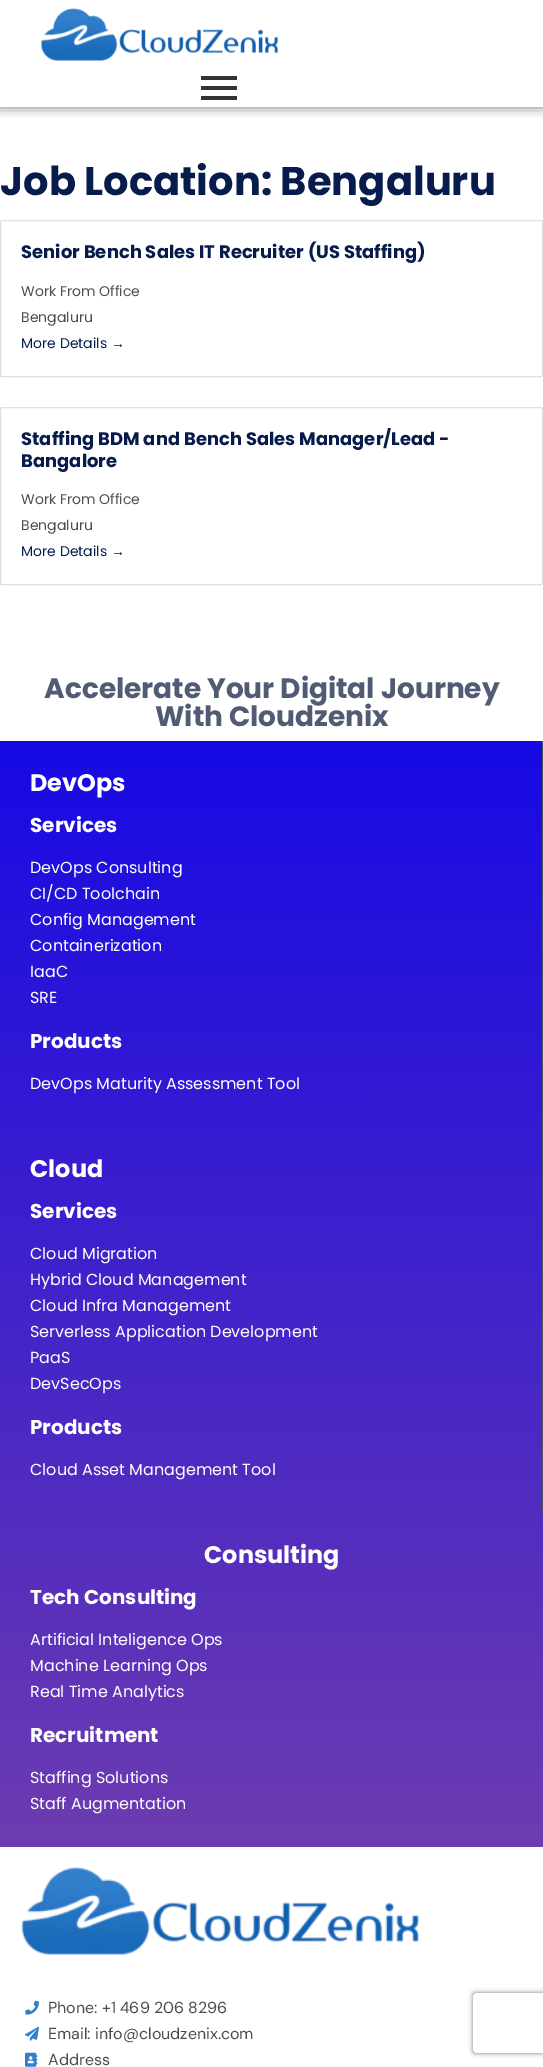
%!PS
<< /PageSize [543 2067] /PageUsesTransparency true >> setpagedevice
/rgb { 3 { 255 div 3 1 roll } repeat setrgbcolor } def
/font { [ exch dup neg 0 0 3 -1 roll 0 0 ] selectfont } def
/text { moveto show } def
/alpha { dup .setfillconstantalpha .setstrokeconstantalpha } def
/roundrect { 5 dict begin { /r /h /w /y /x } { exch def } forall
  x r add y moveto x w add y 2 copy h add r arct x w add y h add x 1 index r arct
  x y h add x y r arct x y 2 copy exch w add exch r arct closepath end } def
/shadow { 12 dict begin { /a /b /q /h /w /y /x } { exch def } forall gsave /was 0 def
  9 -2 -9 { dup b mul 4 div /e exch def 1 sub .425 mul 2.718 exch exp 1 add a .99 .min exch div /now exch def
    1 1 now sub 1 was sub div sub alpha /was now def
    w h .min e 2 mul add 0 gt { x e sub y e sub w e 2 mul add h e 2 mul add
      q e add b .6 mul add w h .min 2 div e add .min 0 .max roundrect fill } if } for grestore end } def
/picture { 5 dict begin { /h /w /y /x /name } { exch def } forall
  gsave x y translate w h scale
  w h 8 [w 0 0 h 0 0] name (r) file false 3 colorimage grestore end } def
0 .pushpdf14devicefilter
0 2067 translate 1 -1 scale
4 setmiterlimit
255 255 255 rgb
0 0 543 2067 rectfill
gsave
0 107 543 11 rectclip
0 0 0 rgb
-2 -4 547 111 0 6.5 0.5 shadow
grestore
(img_01.rgb) 41 8 237 53 picture
51 51 51 rgb
201 76 36 4 rectfill
201 86 36 4 rectfill
201 96 36 4 rectfill
221 223 227 rgb
0.5 220.5 542 156 1.5 roundrect stroke
0.5 407.5 542 177 1.5 roundrect stroke
gsave 0 741 moveto 543 0 rlineto 0 1106 rlineto -543 0 rlineto closepath clip newpath
<< /ShadingType 2 /ColorSpace /DeviceRGB /Coords [271 741 272 1847] /Extend [true true] /Function << /FunctionType 2 /Domain [0 1] /C0 [0.09 0.039 0.894] /C1 [0.427 0.235 0.69] /N 1 >> >> shfill grestore
82 82 92 rgb
542 741 1 772 rectfill
(img_02.rgb) 21 1867 398 88 picture
(img_03.rgb) 25 2000 14 15 picture
(img_04.rgb) 25 2026 14 15 picture
(img_05.rgb) 25 2052 13 15 picture
gsave
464 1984 moveto 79 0 rlineto 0 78 rlineto -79 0 rlineto closepath 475 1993 moveto 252 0 rlineto 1 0 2 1 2 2 rcurveto 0 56 rlineto 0 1 -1 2 -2 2 rcurveto -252 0 rlineto -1 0 -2 -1 -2 -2 rcurveto 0 -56 rlineto 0 -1 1 -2 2 -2 rcurveto closepath eoclip newpath
128 128 128 rgb
473 1993 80 60 2 2.5 1 shadow
grestore
/Poppins-Bold 40 font
7 28 77 rgb
(Job Location: Bengaluru) 0 195 text
/Poppins-Bold 18 font
(Senior Bench Sales IT Recruiter \(US Staffing\)) 21 258 text
/Poppins-Regular 14 font
76 76 76 rgb
(Work From Office) 21 296 text
(Bengaluru) 21 322 text
7 28 77 rgb
(More Details) 21 348 text
/LiberationSans-Regular 14 font
(→) 111 348 text
/Poppins-Bold 18 font
(Staffing BDM and Bench Sales Manager/Lead -) 21 445 text
(Bangalore) 21 467 text
/Poppins-Regular 14 font
76 76 76 rgb
(Work From Office) 21 504 text
(Bengaluru) 21 530 text
7 28 77 rgb
(More Details) 21 556 text
/LiberationSans-Regular 14 font
(→) 111 556 text
/Poppins-Bold 28 font
81 91 115 rgb
(Accelerate Your Digital Journey) 44 698 text
(With Cloudzenix) 155 726 text
/Poppins-Bold 24 font
255 255 255 rgb
(DevOps) 30 791 text
/Poppins-Bold 20 font
(Services) 30 832 text
/Poppins-Regular 16 font
(DevOps Consulting) 30 873 text
(CI/CD Toolchain) 30 899 text
(Config Management) 30 925 text
(Containerization) 30 951 text
(IaaC) 30 977 text
(SRE) 30 1003 text
/Poppins-Bold 20 font
(Products) 30 1048 text
/Poppins-Regular 16 font
(DevOps Maturity Assessment Tool) 30 1089 text
/Poppins-Bold 24 font
(Cloud) 30 1177 text
/Poppins-Bold 20 font
(Services) 30 1218 text
/Poppins-Regular 16 font
(Cloud Migration) 30 1259 text
(Hybrid Cloud Management) 30 1285 text
(Cloud Infra Management) 30 1311 text
(Serverless Application Development) 30 1337 text
(PaaS) 30 1363 text
(DevSecOps) 30 1389 text
/Poppins-Bold 20 font
(Products) 30 1434 text
/Poppins-Regular 16 font
(Cloud Asset Management Tool) 30 1475 text
/Poppins-Bold 24 font
(Consulting) 204 1563 text
/Poppins-Bold 20 font
(Tech Consulting) 30 1604 text
/Poppins-Regular 16 font
(Artificial Inteligence Ops) 30 1645 text
(Machine Learning Ops) 30 1671 text
(Real Time Analytics) 30 1697 text
/Poppins-Bold 20 font
(Recruitment) 30 1742 text
/Poppins-Regular 16 font
(Staffing Solutions) 30 1783 text
(Staff Augmentation) 30 1809 text
/DMSans-Regular 16 font
76 76 76 rgb
(Phone: +1 469 206 8296) 48 2013 text
(Email: info@cloudzenix.com) 48 2039 text
(Address) 48 2065 text
.poppdf14devicefilter showpage
